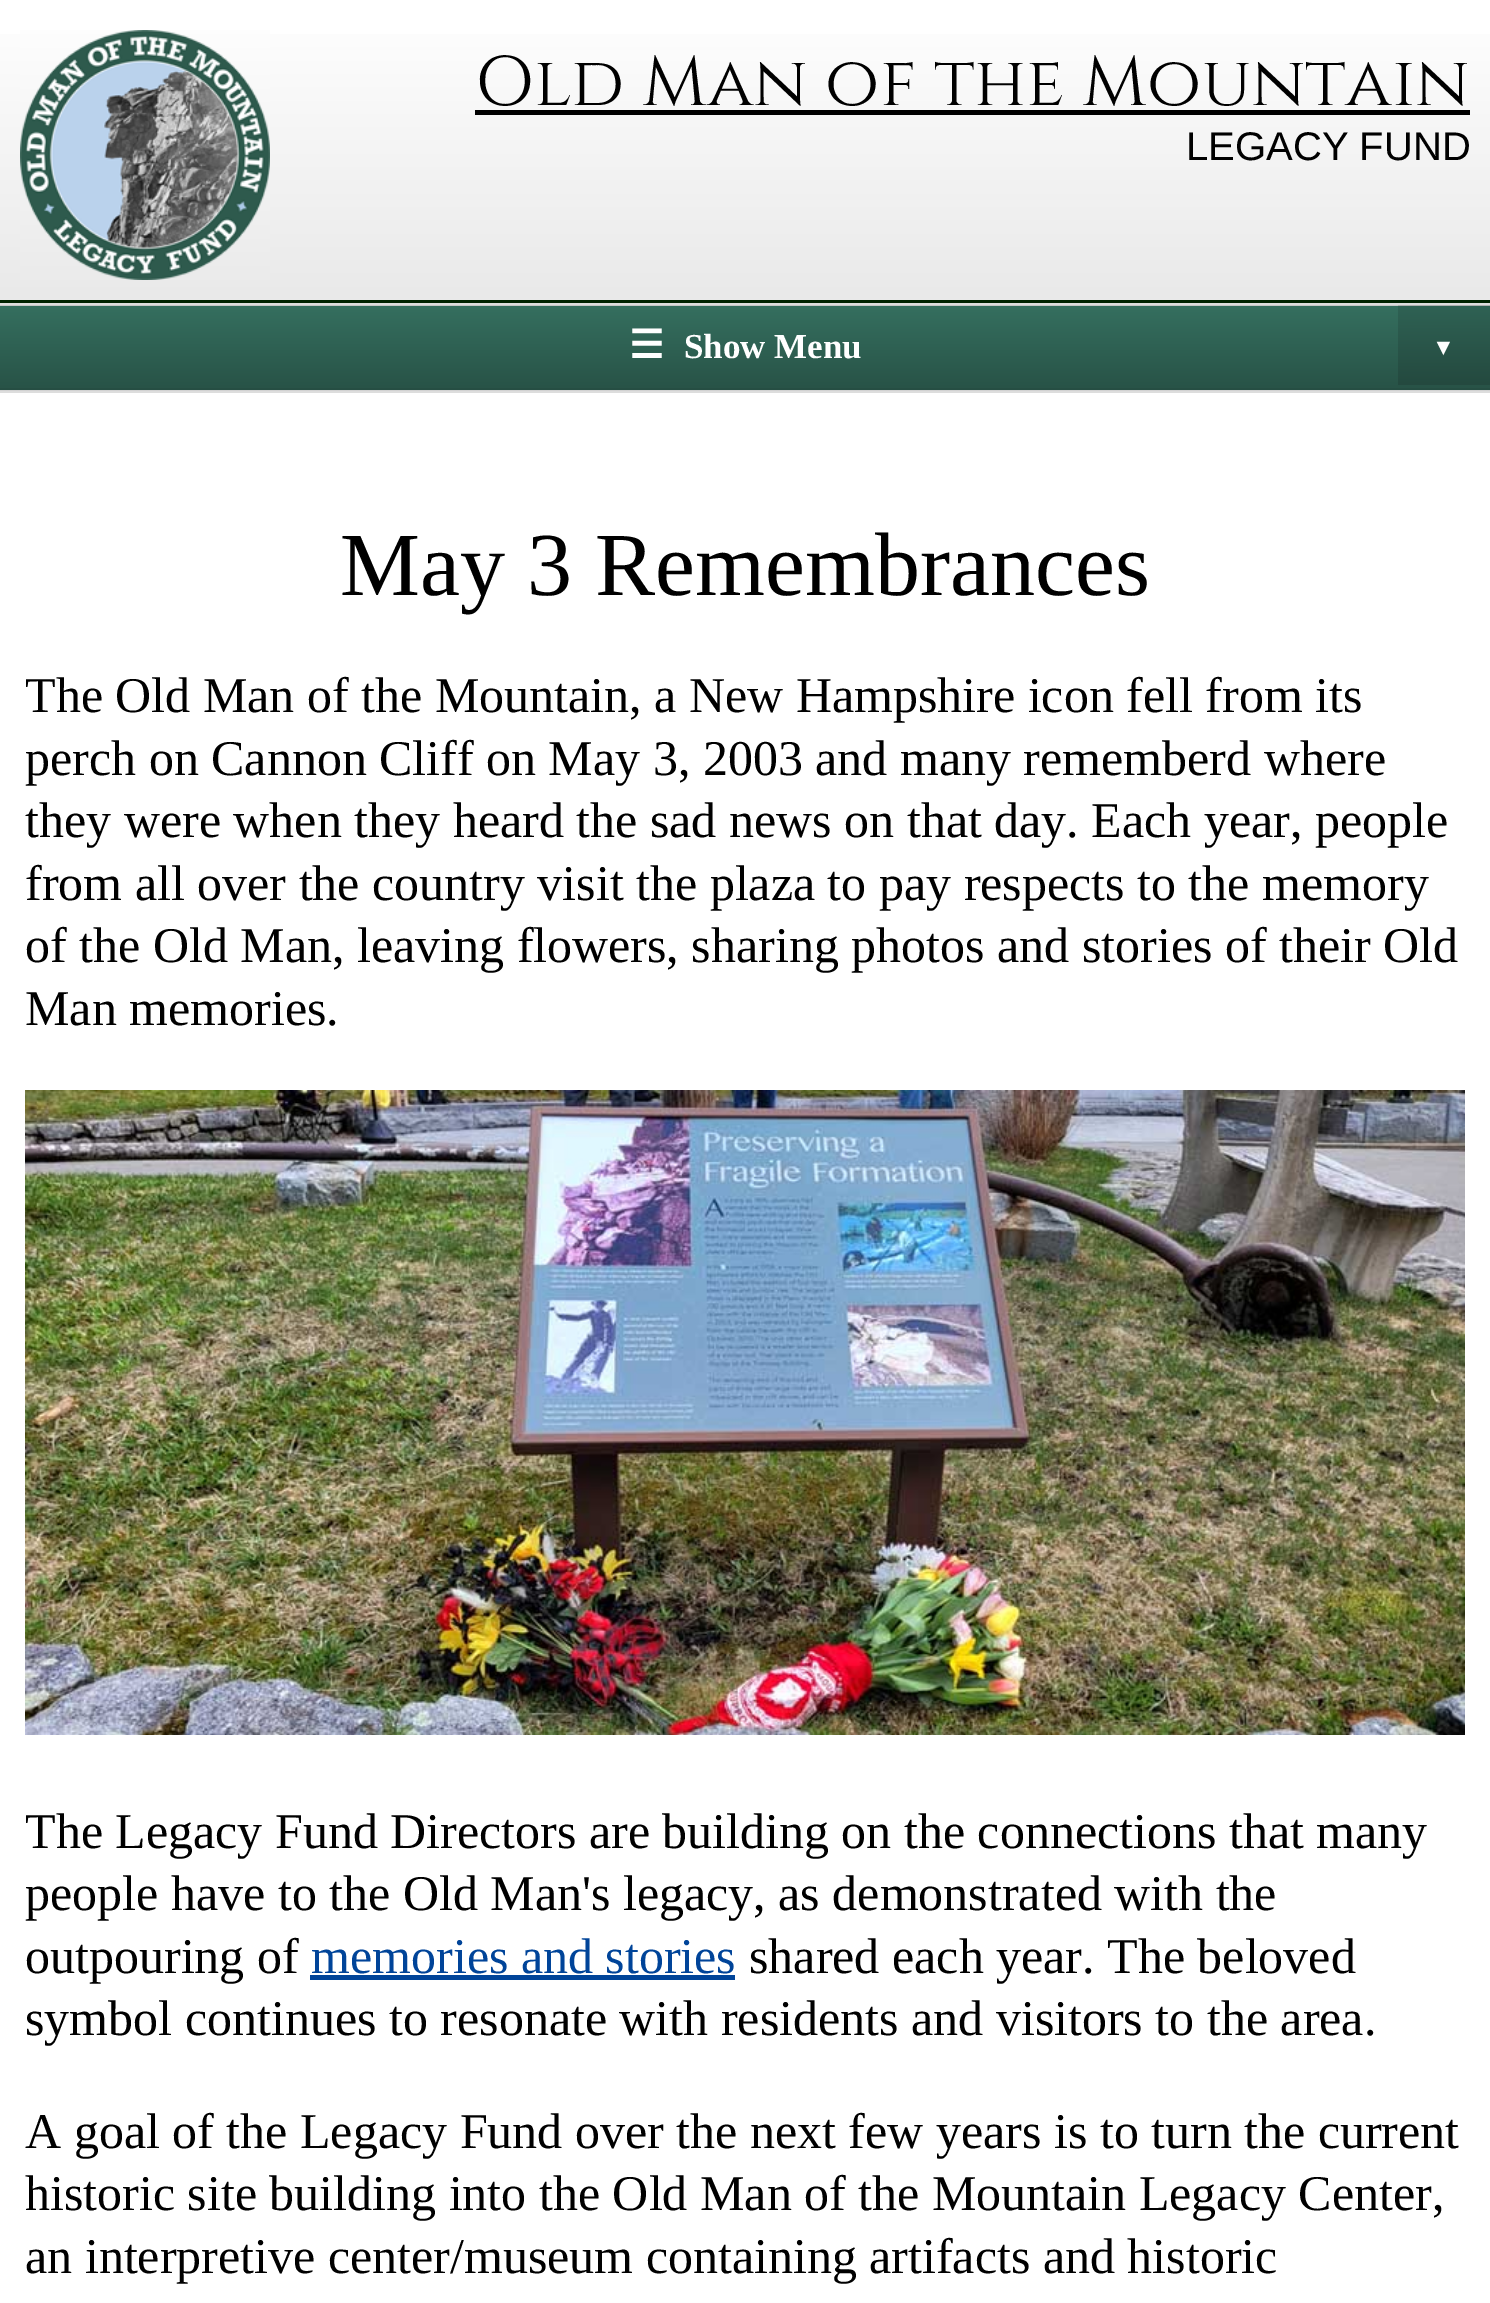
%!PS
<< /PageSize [1490 2303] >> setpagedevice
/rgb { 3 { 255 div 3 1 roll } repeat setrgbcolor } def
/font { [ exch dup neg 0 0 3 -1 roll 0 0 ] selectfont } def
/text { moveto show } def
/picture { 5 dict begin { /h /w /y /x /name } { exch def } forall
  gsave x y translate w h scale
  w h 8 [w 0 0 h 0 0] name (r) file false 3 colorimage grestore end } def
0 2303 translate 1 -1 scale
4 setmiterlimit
255 255 255 rgb
0 0 1490 2303 rectfill
gsave 0 34 moveto 1490 0 rlineto 0 266 rlineto -1490 0 rlineto closepath clip newpath
<< /ShadingType 2 /ColorSpace /DeviceRGB /Coords [745 0 745 300] /Extend [true true] /Function << /FunctionType 2 /Domain [0 1] /C0 [1 1 1] /C1 [0.914 0.914 0.914] /N 1 >> >> shfill grestore
0 34 0 rgb
0 300 1490 3 rectfill
(img_01.rgb) 20 30 250 250 picture
0 0 0 rgb
475 110 995 5 rectfill
gsave 0 306 moveto 1490 0 rlineto 0 82 rlineto -1490 0 rlineto closepath clip newpath
<< /ShadingType 2 /ColorSpace /DeviceRGB /Coords [745 305 745 390] /Extend [true true] /Function << /FunctionType 2 /Domain [0 1] /C0 [0.208 0.435 0.373] /C1 [0.157 0.322 0.275] /N 1 >> >> shfill grestore
gsave 1398 306 moveto 92 0 rlineto 0 79 rlineto -92 0 rlineto closepath clip newpath
<< /ShadingType 2 /ColorSpace /DeviceRGB /Coords [745 305 745 390] /Extend [true true] /Function << /FunctionType 2 /Domain [0 1] /C0 [0.184 0.384 0.329] /C1 [0.137 0.282 0.243] /N 1 >> >> shfill grestore
gsave 0 388 moveto 1490 0 rlineto 0 2 rlineto -1490 0 rlineto closepath clip newpath
<< /ShadingType 2 /ColorSpace /DeviceRGB /Coords [745 305 745 390] /Extend [true true] /Function << /FunctionType 2 /Domain [0 1] /C0 [0.196 0.412 0.353] /C1 [0.149 0.306 0.263] /N 1 >> >> shfill grestore
221 221 221 rgb
0 303 1490 2 rectfill
199 199 199 rgb
0 305 1398 1 rectfill
175 175 175 rgb
1398 305 92 1 rectfill
221 221 221 rgb
0 391 1490 2 rectfill
210 210 210 rgb
0 390 1490 1 rectfill
(img_02.rgb) 25 1090 1440 645 picture
0 68 153 rgb
310 1975 425 5 rectfill
/Cinzel-Regular 70 font
0 0 0 rgb
(Old Man of the Mountain) 475 105 text
/LiberationSans-Regular 40 font
(LEGACY FUND) 1186 160 text
/DejaVuSans-Bold 39 font
255 255 255 rgb
(☰) 629 358 text
/LiberationSerif-Bold 35 font
(Show Menu) 684 358 text
/LiberationSerif-Bold 23 font
(▼) 1432 355 text
/LiberationSerif-Regular 90 font
0 0 0 rgb
(May 3 Remembrances) 340 595 text
/LiberationSerif-Regular 50 font
(The Old Man of the Mountain, a New Hampshire icon fell from its) 25 712 text
(perch on Cannon Cliff on May 3, 2003 and many rememberd where) 25 775 text
(they were when they heard the sad news on that day. Each year, people) 25 837 text
(from all over the country visit the plaza to pay respects to the memory) 25 900 text
(of the Old Man, leaving flowers, sharing photos and stories of their Old) 25 962 text
(Man memories.) 25 1025 text
(The Legacy Fund Directors are building on the connections that many) 25 1848 text
(people have to the Old Man's legacy, as demonstrated with the) 25 1910 text
(outpouring of) 25 1973 text
0 68 153 rgb
(memories and stories) 311 1973 text
0 0 0 rgb
(shared each year. The beloved) 749 1973 text
(symbol continues to resonate with residents and visitors to the area.) 25 2035 text
(A goal of the Legacy Fund over the next few years is to turn the current) 25 2148 text
(historic site building into the Old Man of the Mountain Legacy Center,) 25 2210 text
(an interpretive center/museum containing artifacts and historic) 25 2273 text
showpage
